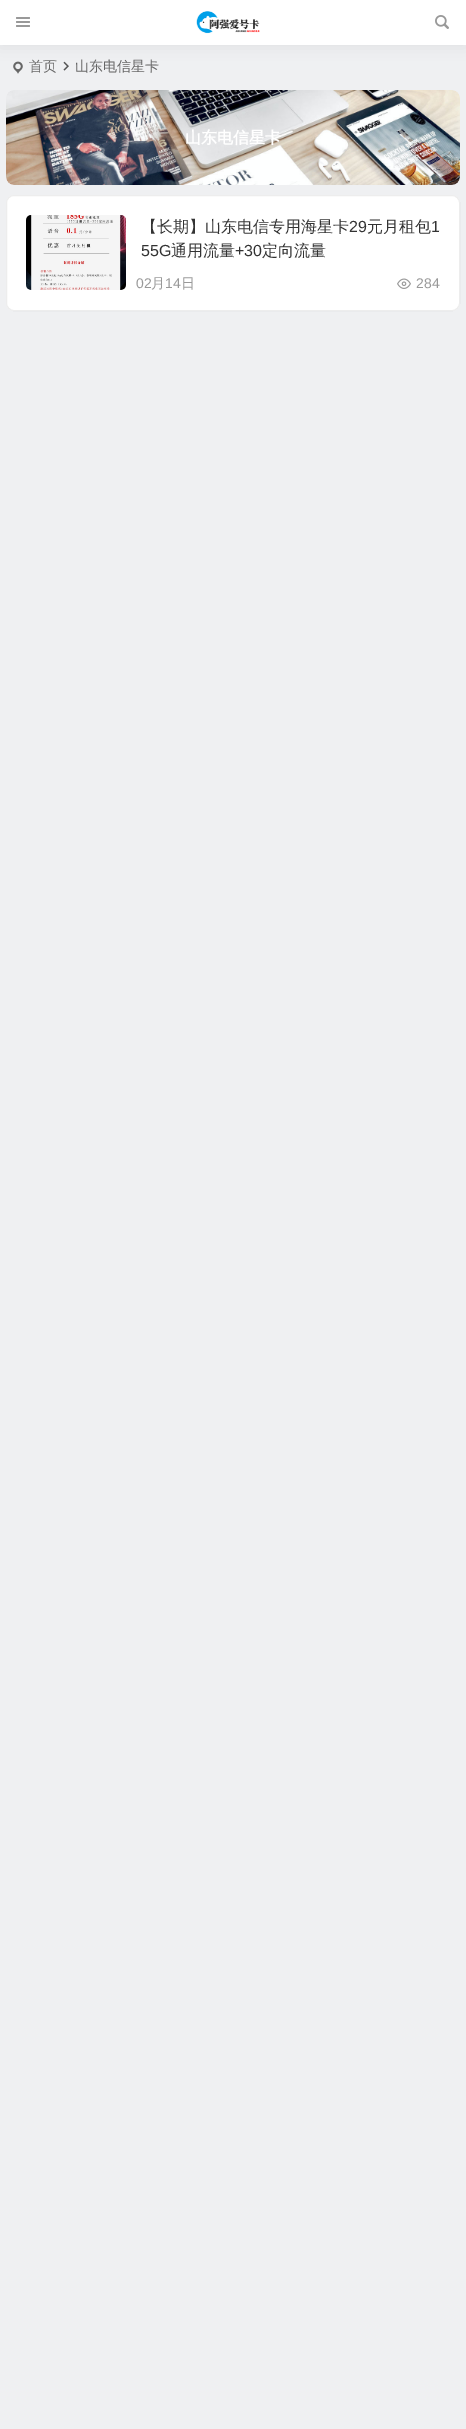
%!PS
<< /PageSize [466 2429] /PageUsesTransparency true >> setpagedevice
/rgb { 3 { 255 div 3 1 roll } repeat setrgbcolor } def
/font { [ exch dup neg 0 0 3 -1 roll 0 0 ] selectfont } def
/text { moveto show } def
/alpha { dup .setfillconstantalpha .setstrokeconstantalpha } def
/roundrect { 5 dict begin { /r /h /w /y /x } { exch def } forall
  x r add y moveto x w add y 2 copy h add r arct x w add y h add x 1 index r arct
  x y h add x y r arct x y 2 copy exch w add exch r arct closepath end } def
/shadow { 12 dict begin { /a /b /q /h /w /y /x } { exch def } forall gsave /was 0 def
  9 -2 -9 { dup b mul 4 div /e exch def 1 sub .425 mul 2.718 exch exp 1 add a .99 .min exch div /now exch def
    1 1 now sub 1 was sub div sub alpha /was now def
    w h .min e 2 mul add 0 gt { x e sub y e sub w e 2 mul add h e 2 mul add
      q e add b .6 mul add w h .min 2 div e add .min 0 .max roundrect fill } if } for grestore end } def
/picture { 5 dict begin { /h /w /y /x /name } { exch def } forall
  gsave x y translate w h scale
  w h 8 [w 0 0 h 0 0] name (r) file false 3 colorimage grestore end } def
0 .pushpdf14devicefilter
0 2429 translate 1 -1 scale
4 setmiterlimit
239 240 242 rgb
0 0 466 2429 rectfill
(img_03.rgb) 13 61 10 13 picture
(img_04.rgb) 63 61 6 10 picture
0 0 0 rgb
0 3 466 45 0 7.5 0.06 shadow
255 255 255 rgb
0 0 466 45 rectfill
153 153 153 rgb
16 21 14 2 1 roundrect fill
16 17 14 2 1 roundrect fill
16 25 14 2 1 roundrect fill
(img_01.rgb) 196 11 64 23 picture
(img_02.rgb) 435 15 14 14 picture
(img_05.rgb) 6 90 454 95 picture
255 255 255 rgb
6 195 454 116 8 roundrect fill
0.07 alpha
0 0 0 rgb
6.5 195.5 453 115 7.5 roundrect stroke
1 alpha
(img_06.rgb) 26 215 100 75 picture
(img_07.rgb) 397 278 14 11 picture
/WenQuanYiZenHei-Medium 14 font
102 102 102 rgb
(首页) 29 71 text
(山东电信星卡) 75 71 text
/WenQuanYiZenHei-Bold 16 font
255 255 255 rgb
(山东电信星卡) 185 143 text
/WenQuanYiZenHei-Medium 16 font
51 51 51 rgb
(【长期】山东电信专用海星卡) 141 232 text
/LiberationSans-Regular 16 font
(29) 349 232 text
/WenQuanYiZenHei-Medium 16 font
(元月租包) 367 232 text
/LiberationSans-Regular 16 font
(1) 431 232 text
(55G) 141 256 text
/WenQuanYiZenHei-Medium 16 font
(通用流量) 171 256 text
/LiberationSans-Regular 16 font
(+30) 235 256 text
/WenQuanYiZenHei-Medium 16 font
(定向流量) 262 256 text
/LiberationSans-Regular 14 font
153 153 153 rgb
(02) 136 288 text
/WenQuanYiZenHei-Medium 14 font
(月) 151 288 text
/LiberationSans-Regular 14 font
(14) 165 288 text
/WenQuanYiZenHei-Medium 14 font
(日) 181 288 text
/LiberationSans-Regular 14 font
(284) 416 288 text
.poppdf14devicefilter showpage
